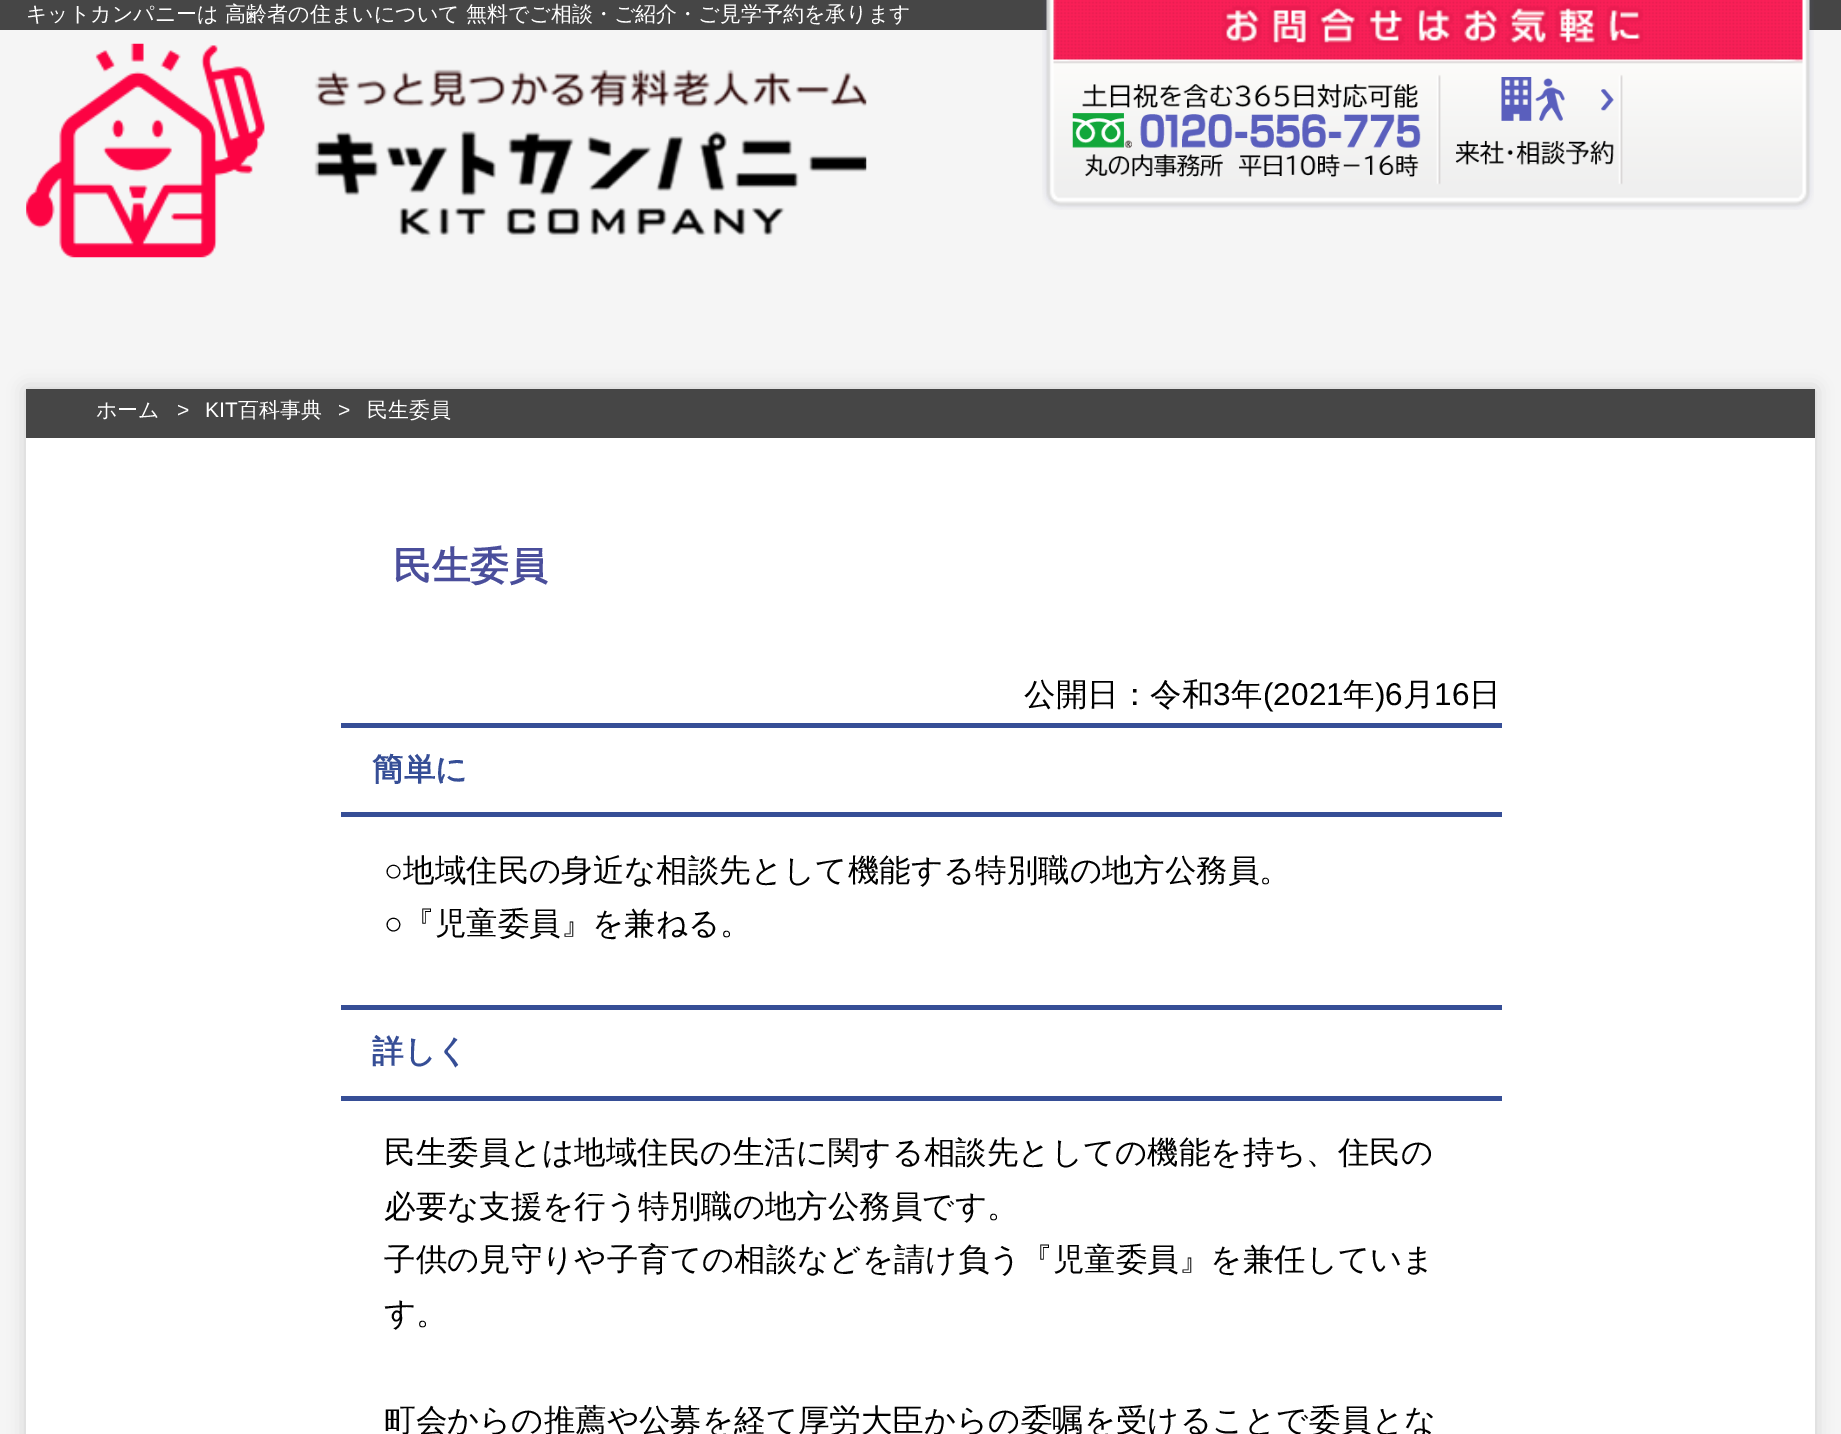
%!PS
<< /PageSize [1841 1434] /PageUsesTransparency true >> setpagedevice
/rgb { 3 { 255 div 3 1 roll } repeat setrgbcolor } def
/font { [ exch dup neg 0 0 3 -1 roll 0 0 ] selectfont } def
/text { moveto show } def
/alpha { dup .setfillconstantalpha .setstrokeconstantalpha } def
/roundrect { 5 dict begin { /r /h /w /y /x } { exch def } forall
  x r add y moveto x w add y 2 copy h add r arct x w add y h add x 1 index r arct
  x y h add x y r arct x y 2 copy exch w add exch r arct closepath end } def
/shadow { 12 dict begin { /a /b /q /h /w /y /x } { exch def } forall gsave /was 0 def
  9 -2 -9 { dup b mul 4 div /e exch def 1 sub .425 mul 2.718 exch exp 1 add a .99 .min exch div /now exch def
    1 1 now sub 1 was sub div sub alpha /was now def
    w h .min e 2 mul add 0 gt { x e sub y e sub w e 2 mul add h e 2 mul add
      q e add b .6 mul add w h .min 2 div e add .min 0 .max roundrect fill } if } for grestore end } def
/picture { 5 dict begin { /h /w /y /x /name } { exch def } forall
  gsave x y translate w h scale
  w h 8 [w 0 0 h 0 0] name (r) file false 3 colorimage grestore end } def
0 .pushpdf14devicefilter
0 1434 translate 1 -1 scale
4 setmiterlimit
245 245 245 rgb
0 0 1841 1434 rectfill
(img_01.rgb) 26 43 841 215 picture
70 70 70 rgb
0 0 1841 30 rectfill
(img_02.rgb) 1042 0 772 210 picture
(img_03.rgb) 1072 84 349 93 picture
(img_04.rgb) 1455 77 159 88 picture
204 204 204 rgb
26 389 1789 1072 0 9 1 shadow
255 255 255 rgb
26 438 1789 996 rectfill
70 70 70 rgb
26 389 1789 49 rectfill
54 78 150 rgb
341 723 1161 5 rectfill
341 812 1161 5 rectfill
341 1005 1161 5 rectfill
341 1096 1161 5 rectfill
/WenQuanYiZenHei-Medium 21 font
255 255 255 rgb
(キットカンパニーは 高齢者の住まいについて 無料でご相談・ご紹介・ご見学予約を承ります) 26 21 text
(ホーム) 96 417 text
/LiberationSans-Regular 21 font
(>) 177 417 text
(KIT) 205 417 text
/WenQuanYiZenHei-Medium 21 font
(百科事典) 238 417 text
/LiberationSans-Regular 21 font
(>) 338 417 text
/WenQuanYiZenHei-Medium 21 font
(民生委員) 367 417 text
/WenQuanYiZenHei-Bold 38.5 font
74 78 155 rgb
(民生委員) 393 579 text
/WenQuanYiZenHei-Medium 31.5 font
0 0 0 rgb
(公開日：令和) 1024 705 text
/LiberationSans-Regular 31.5 font
(3) 1213 705 text
/WenQuanYiZenHei-Medium 31.5 font
(年) 1231 705 text
/LiberationSans-Regular 31.5 font
(\(2021) 1263 705 text
/WenQuanYiZenHei-Medium 31.5 font
(年) 1343 705 text
/LiberationSans-Regular 31.5 font
(\)6) 1375 705 text
/WenQuanYiZenHei-Medium 31.5 font
(月) 1403 705 text
/LiberationSans-Regular 31.5 font
(16) 1434 705 text
/WenQuanYiZenHei-Medium 31.5 font
(日) 1469 705 text
/WenQuanYiZenHei-Bold 31.5 font
54 78 150 rgb
(簡単に) 372 780 text
/LiberationSans-Regular 31.5 font
0 0 0 rgb
(○) 384 881 text
/WenQuanYiZenHei-Medium 31.5 font
(地域住民の身近な相談先として機能する特別職の地方公務員。) 403 881 text
/LiberationSans-Regular 31.5 font
(○) 384 934 text
/WenQuanYiZenHei-Medium 31.5 font
(『児童委員』を兼ねる。) 403 934 text
/WenQuanYiZenHei-Bold 31.5 font
54 78 150 rgb
(詳しく) 372 1062 text
/WenQuanYiZenHei-Medium 31.5 font
0 0 0 rgb
(民生委員とは地域住民の生活に関する相談先としての機能を持ち、住民の) 384 1163 text
(必要な支援を行う特別職の地方公務員です。) 384 1217 text
(子供の見守りや子育ての相談などを請け負う『児童委員』を兼任していま) 384 1270 text
(す。) 384 1324 text
(町会からの推薦や公募を経て厚労大臣からの委嘱を受けることで委員とな) 384 1431 text
.poppdf14devicefilter showpage
